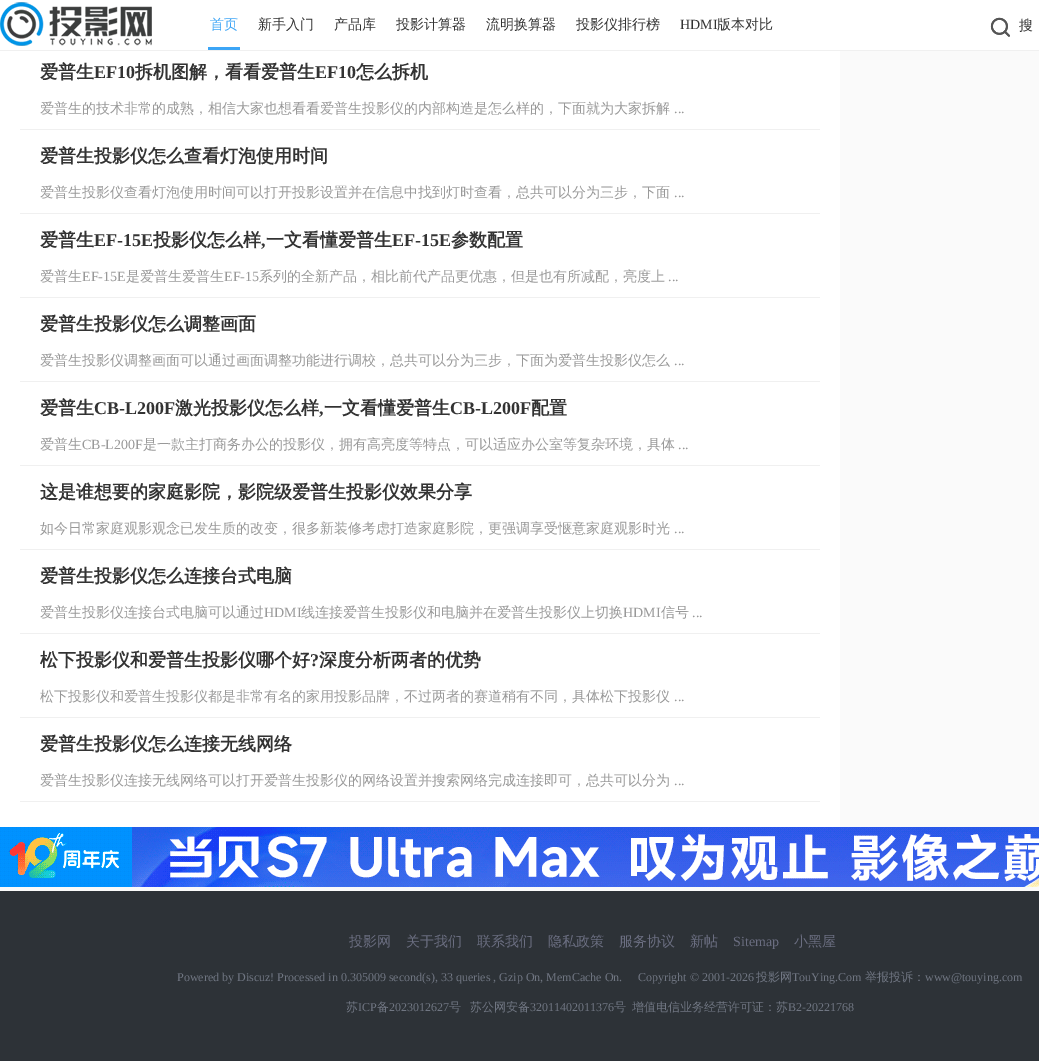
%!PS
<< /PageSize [1039 1061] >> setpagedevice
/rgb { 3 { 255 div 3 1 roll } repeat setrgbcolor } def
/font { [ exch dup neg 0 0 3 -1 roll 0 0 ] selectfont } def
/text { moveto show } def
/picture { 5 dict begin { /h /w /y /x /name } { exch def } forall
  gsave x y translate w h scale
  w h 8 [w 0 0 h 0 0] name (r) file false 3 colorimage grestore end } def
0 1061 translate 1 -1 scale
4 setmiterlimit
250 250 250 rgb
0 0 1039 1061 rectfill
255 255 255 rgb
0 0 1039 50 rectfill
240 240 240 rgb
0 50 1039 1 rectfill
(img_01.rgb) 0 2 152 44 picture
60 165 246 rgb
208 47 32 3 rectfill
(img_02.rgb) 990 17 20 20 picture
255 255 255 rgb
0 51 840 776 rectfill
240 240 240 rgb
20 129 800 1 rectfill
20 213 800 1 rectfill
20 297 800 1 rectfill
20 381 800 1 rectfill
20 465 800 1 rectfill
20 549 800 1 rectfill
20 633 800 1 rectfill
20 717 800 1 rectfill
20 801 800 1 rectfill
(img_03.rgb) 0 827 1039 60 picture
45 50 55 rgb
0 891 1039 170 rectfill
/WenQuanYiZenHei-Medium 14 font
60 165 246 rgb
(首页) 210 29 text
51 51 51 rgb
(新手入门) 258 29 text
(产品库) 334 29 text
(投影计算器) 396 29 text
(流明换算器) 486 29 text
(投影仪排行榜) 576 29 text
/LiberationSerif-Regular 14 font
(HDMI) 680 29 text
/WenQuanYiZenHei-Medium 14 font
(版本对比) 717 29 text
(搜) 1019 30 text
/WenQuanYiZenHei-Bold 18 font
(爱普生) 40 78 text
/LiberationSerif-Bold 18 font
(EF10) 94 78 text
/WenQuanYiZenHei-Bold 18 font
(拆机图解，看看爱普生) 135 78 text
/LiberationSerif-Bold 18 font
(EF10) 315 78 text
/WenQuanYiZenHei-Bold 18 font
(怎么拆机) 356 78 text
/WenQuanYiZenHei-Medium 14 font
153 153 153 rgb
(爱普生的技术非常的成熟，相信大家也想看看爱普生投影仪的内部构造是怎么样的，下面就为大家拆解) 40 113 text
/LiberationSerif-Regular 14 font
(...) 674 113 text
/WenQuanYiZenHei-Bold 18 font
51 51 51 rgb
(爱普生投影仪怎么查看灯泡使用时间) 40 162 text
/WenQuanYiZenHei-Medium 14 font
153 153 153 rgb
(爱普生投影仪查看灯泡使用时间可以打开投影设置并在信息中找到灯时查看，总共可以分为三步，下面) 40 197 text
/LiberationSerif-Regular 14 font
(...) 674 197 text
/WenQuanYiZenHei-Bold 18 font
51 51 51 rgb
(爱普生) 40 246 text
/LiberationSerif-Bold 18 font
(EF-15E) 94 246 text
/WenQuanYiZenHei-Bold 18 font
(投影仪怎么样) 153 246 text
/LiberationSerif-Bold 18 font
(,) 261 246 text
/WenQuanYiZenHei-Bold 18 font
(一文看懂爱普生) 266 246 text
/LiberationSerif-Bold 18 font
(EF-15E) 392 246 text
/WenQuanYiZenHei-Bold 18 font
(参数配置) 451 246 text
/WenQuanYiZenHei-Medium 14 font
153 153 153 rgb
(爱普生) 40 281 text
/LiberationSerif-Regular 14 font
(EF-15E) 82 281 text
/WenQuanYiZenHei-Medium 14 font
(是爱普生爱普生) 126 281 text
/LiberationSerif-Regular 14 font
(EF-15) 224 281 text
/WenQuanYiZenHei-Medium 14 font
(系列的全新产品，相比前代产品更优惠，但是也有所减配，亮度上) 259 281 text
/LiberationSerif-Regular 14 font
(...) 668 281 text
/WenQuanYiZenHei-Bold 18 font
51 51 51 rgb
(爱普生投影仪怎么调整画面) 40 330 text
/WenQuanYiZenHei-Medium 14 font
153 153 153 rgb
(爱普生投影仪调整画面可以通过画面调整功能进行调校，总共可以分为三步，下面为爱普生投影仪怎么) 40 365 text
/LiberationSerif-Regular 14 font
(...) 674 365 text
/WenQuanYiZenHei-Bold 18 font
51 51 51 rgb
(爱普生) 40 414 text
/LiberationSerif-Bold 18 font
(CB-L200F) 94 414 text
/WenQuanYiZenHei-Bold 18 font
(激光投影仪怎么样) 175 414 text
/LiberationSerif-Bold 18 font
(,) 319 414 text
/WenQuanYiZenHei-Bold 18 font
(一文看懂爱普生) 324 414 text
/LiberationSerif-Bold 18 font
(CB-L200F) 450 414 text
/WenQuanYiZenHei-Bold 18 font
(配置) 531 414 text
/WenQuanYiZenHei-Medium 14 font
153 153 153 rgb
(爱普生) 40 449 text
/LiberationSerif-Regular 14 font
(CB-L200F) 82 449 text
/WenQuanYiZenHei-Medium 14 font
(是一款主打商务办公的投影仪，拥有高亮度等特点，可以适应办公室等复杂环境，具体) 143 449 text
/LiberationSerif-Regular 14 font
(...) 678 449 text
/WenQuanYiZenHei-Bold 18 font
51 51 51 rgb
(这是谁想要的家庭影院，影院级爱普生投影仪效果分享) 40 498 text
/WenQuanYiZenHei-Medium 14 font
153 153 153 rgb
(如今日常家庭观影观念已发生质的改变，很多新装修考虑打造家庭影院，更强调享受惬意家庭观影时光) 40 533 text
/LiberationSerif-Regular 14 font
(...) 674 533 text
/WenQuanYiZenHei-Bold 18 font
51 51 51 rgb
(爱普生投影仪怎么连接台式电脑) 40 582 text
/WenQuanYiZenHei-Medium 14 font
153 153 153 rgb
(爱普生投影仪连接台式电脑可以通过) 40 617 text
/LiberationSerif-Regular 14 font
(HDMI) 264 617 text
/WenQuanYiZenHei-Medium 14 font
(线连接爱普生投影仪和电脑并在爱普生投影仪上切换) 301 617 text
/LiberationSerif-Regular 14 font
(HDMI) 623 617 text
/WenQuanYiZenHei-Medium 14 font
(信号) 661 617 text
/LiberationSerif-Regular 14 font
(...) 692 617 text
/WenQuanYiZenHei-Bold 18 font
51 51 51 rgb
(松下投影仪和爱普生投影仪哪个好) 40 666 text
/LiberationSerif-Bold 18 font
(?) 310 666 text
/WenQuanYiZenHei-Bold 18 font
(深度分析两者的优势) 319 666 text
/WenQuanYiZenHei-Medium 14 font
153 153 153 rgb
(松下投影仪和爱普生投影仪都是非常有名的家用投影品牌，不过两者的赛道稍有不同，具体松下投影仪) 40 701 text
/LiberationSerif-Regular 14 font
(...) 674 701 text
/WenQuanYiZenHei-Bold 18 font
51 51 51 rgb
(爱普生投影仪怎么连接无线网络) 40 750 text
/WenQuanYiZenHei-Medium 14 font
153 153 153 rgb
(爱普生投影仪连接无线网络可以打开爱普生投影仪的网络设置并搜索网络完成连接即可，总共可以分为) 40 785 text
/LiberationSerif-Regular 14 font
(...) 674 785 text
/WenQuanYiZenHei-Medium 14 font
107 110 129 rgb
(投影网) 349 946 text
(关于我们) 406 946 text
(联系我们) 477 946 text
(隐私政策) 548 946 text
(服务协议) 619 946 text
(新帖) 690 946 text
/LiberationSerif-Regular 14 font
(Sitemap) 733 946 text
/WenQuanYiZenHei-Medium 14 font
(小黑屋) 794 946 text
/LiberationSerif-Regular 12 font
112 118 130 rgb
(Powered by Discuz! Processed in 0.305009 second\(s\), 33 queries , Gzip On, MemCache On.) 177 981 text
(Copyright © 2001-2026) 638 981 text
/WenQuanYiZenHei-Medium 12 font
(投影网) 756 981 text
/LiberationSerif-Regular 12 font
(TouYing.Com) 792 981 text
/WenQuanYiZenHei-Medium 12 font
(举报投诉：) 865 981 text
/LiberationSerif-Regular 12 font
(www@touying.com) 925 981 text
/WenQuanYiZenHei-Medium 12 font
(苏) 346 1011 text
/LiberationSerif-Regular 12 font
(ICP) 358 1011 text
/WenQuanYiZenHei-Medium 12 font
(备) 377 1011 text
/LiberationSerif-Regular 12 font
(2023012627) 389 1011 text
/WenQuanYiZenHei-Medium 12 font
(号) 449 1011 text
(苏公网安备) 470 1011 text
/LiberationSerif-Regular 12 font
(32011402011376) 530 1011 text
/WenQuanYiZenHei-Medium 12 font
(号) 614 1011 text
(增值电信业务经营许可证：苏) 632 1011 text
/LiberationSerif-Regular 12 font
(B2-20221768) 788 1011 text
showpage
